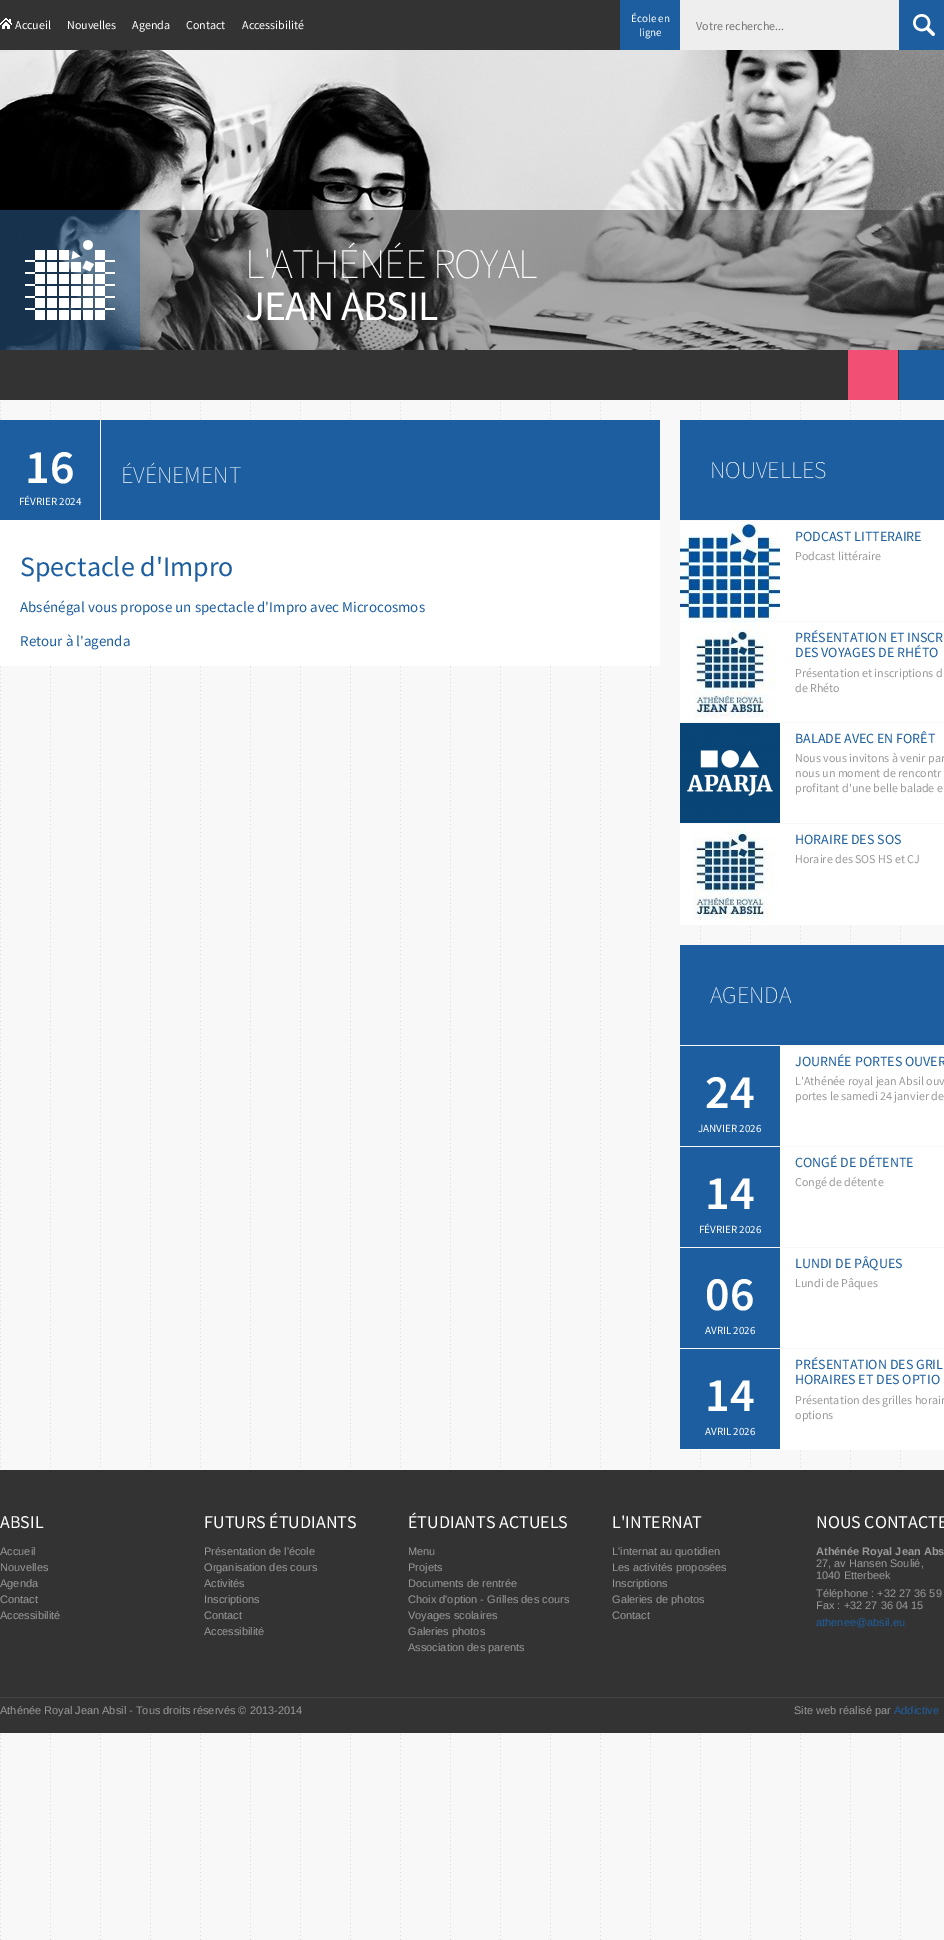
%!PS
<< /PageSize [944 1940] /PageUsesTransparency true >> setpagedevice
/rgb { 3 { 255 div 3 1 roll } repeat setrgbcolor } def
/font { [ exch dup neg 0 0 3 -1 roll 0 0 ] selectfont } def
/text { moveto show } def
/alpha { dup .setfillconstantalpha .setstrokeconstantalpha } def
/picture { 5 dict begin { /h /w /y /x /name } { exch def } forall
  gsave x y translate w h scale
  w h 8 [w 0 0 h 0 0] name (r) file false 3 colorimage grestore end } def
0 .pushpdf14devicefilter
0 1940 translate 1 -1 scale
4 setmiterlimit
255 255 255 rgb
0 0 944 1940 rectfill
(img_01.rgb) 0 400 944 1540 picture
51 51 51 rgb
0 0 620 50 rectfill
(img_02.rgb) 0 18 12 11 picture
28 94 159 rgb
620 0 60 50 rectfill
238 238 238 rgb
680 0 219 50 rectfill
28 94 159 rgb
899 0 45 50 rectfill
(img_03.rgb) 913 14 22 22 picture
(img_04.rgb) 0 50 944 300 picture
0.4 alpha
50 50 50 rgb
0 210 944 140 rectfill
27 95 160 rgb
0 210 140 140 rectfill
1 alpha
(img_05.rgb) 25 240 90 80 picture
51 51 51 rgb
0 350 899 50 rectfill
241 79 116 rgb
848 350 50 50 rectfill
28 94 159 rgb
899 350 45 50 rectfill
255 255 255 rgb
0 520 660 146 rectfill
28 94 159 rgb
0 420 660 100 rectfill
255 255 255 rgb
100 420 1 100 rectfill
680 521 264 404 rectfill
28 94 159 rgb
680 420 264 100 rectfill
248 248 248 rgb
700 520 201 1 rectfill
(img_06.rgb) 680 521 100 100 picture
680 621 264 1 rectfill
(img_07.rgb) 680 622 100 100 picture
680 722 264 1 rectfill
(img_08.rgb) 680 723 100 100 picture
680 823 264 1 rectfill
(img_09.rgb) 680 824 100 100 picture
255 255 255 rgb
680 1046 264 404 rectfill
28 94 159 rgb
680 945 264 100 rectfill
248 248 248 rgb
700 1045 201 1 rectfill
28 94 159 rgb
680 1046 100 100 rectfill
248 248 248 rgb
680 1146 264 1 rectfill
28 94 159 rgb
680 1147 100 100 rectfill
248 248 248 rgb
680 1247 264 1 rectfill
28 94 159 rgb
680 1248 100 100 rectfill
248 248 248 rgb
680 1348 264 1 rectfill
28 94 159 rgb
680 1349 100 100 rectfill
51 51 51 rgb
0 1470 944 263 rectfill
68 68 68 rgb
0 1697 944 1 rectfill
/SourceSansPro-Regular 12 font
255 255 255 rgb
(Accueil) 15 29 text
(Nouvelles) 67 29 text
(Agenda) 132 29 text
(Contact) 186 29 text
(Accessibilité) 242 29 text
/SourceSansPro-Regular 11 font
(École en) 631 22 text
(ligne) 639 36 text
/SourceSansPro-Regular 12 font
117 117 117 rgb
(Votre recherche...) 696 30 text
/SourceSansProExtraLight-ExtraLight 42 font
255 255 255 rgb
245 278 moveto -1 0 (L'ATHÉNÉE ROYAL) ashow
/SourceSansPro-Regular 42 font
245 320 moveto -1 0 (JEAN ABSIL) ashow
/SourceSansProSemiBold-SemiBold 48 font
(16) 25 483 text
/SourceSansPro-Regular 11 font
(FÉVRIER 2024) 19 505 text
/SourceSansProExtraLight-ExtraLight 24 font
(ÉVÉNEMENT) 121 483 text
/SourceSansPro-Regular 28 font
28 94 159 rgb
(Spectacle d'Impro) 20 576 text
/SourceSansPro-Regular 15 font
(Absénégal vous propose un spectacle d'Impro avec Microcosmos) 20 612 text
(Retour à l'agenda) 20 646 text
/SourceSansProExtraLight-ExtraLight 24 font
255 255 255 rgb
(NOUVELLES) 710 478 text
/SourceSansPro-Regular 14 font
28 94 159 rgb
(PODCAST LITTERAIRE) 795 541 text
/SourceSansPro-Regular 12 font
153 153 153 rgb
(Podcast littéraire) 795 560 text
/SourceSansPro-Regular 14 font
28 94 159 rgb
(PRÉSENTATION ET INSCR) 795 642 text
(DES VOYAGES DE RHÉTO) 795 657 text
/SourceSansPro-Regular 12 font
153 153 153 rgb
(Présentation et inscriptions d) 795 677 text
(de Rhéto) 795 692 text
/SourceSansPro-Regular 14 font
28 94 159 rgb
(BALADE AVEC EN FORÊT) 795 743 text
/SourceSansPro-Regular 12 font
153 153 153 rgb
(Nous vous invitons à venir par) 795 762 text
(nous un moment de rencontr) 795 777 text
(profitant d'une belle balade e) 795 792 text
/SourceSansPro-Regular 14 font
28 94 159 rgb
(HORAIRE DES SOS) 795 844 text
/SourceSansPro-Regular 12 font
153 153 153 rgb
(Horaire des SOS HS et CJ) 795 863 text
/SourceSansProExtraLight-ExtraLight 24 font
255 255 255 rgb
(AGENDA) 710 1003 text
/SourceSansProSemiBold-SemiBold 48 font
(24) 705 1108 text
/SourceSansPro-Regular 11 font
(JANVIER 2026) 698 1132 text
/SourceSansPro-Regular 14 font
28 94 159 rgb
(JOURNÉE PORTES OUVER) 795 1066 text
/SourceSansPro-Regular 12 font
153 153 153 rgb
(L'Athénée royal jean Absil ouv) 795 1085 text
(portes le samedi 24 janvier de) 795 1100 text
/SourceSansPro-Regular 14 font
28 94 159 rgb
(CONGÉ DE DÉTENTE) 795 1167 text
/SourceSansPro-Regular 12 font
153 153 153 rgb
(Congé de détente) 795 1186 text
/SourceSansProSemiBold-SemiBold 48 font
255 255 255 rgb
(14) 705 1209 text
/SourceSansPro-Regular 11 font
(FÉVRIER 2026) 699 1233 text
/SourceSansPro-Regular 14 font
28 94 159 rgb
(LUNDI DE PÂQUES) 795 1268 text
/SourceSansPro-Regular 12 font
153 153 153 rgb
(Lundi de Pâques) 795 1287 text
/SourceSansProSemiBold-SemiBold 48 font
255 255 255 rgb
(06) 705 1310 text
/SourceSansPro-Regular 11 font
(AVRIL 2026) 705 1334 text
/SourceSansProSemiBold-SemiBold 48 font
(14) 705 1411 text
/SourceSansPro-Regular 11 font
(AVRIL 2026) 705 1435 text
/SourceSansPro-Regular 14 font
28 94 159 rgb
(PRÉSENTATION DES GRIL) 795 1369 text
(HORAIRES ET DES OPTIO) 795 1384 text
/SourceSansPro-Regular 12 font
153 153 153 rgb
(Présentation des grilles horair) 795 1404 text
(options) 795 1419 text
/SourceSansPro-Regular 18 font
255 255 255 rgb
(ABSIL) 0 1528 text
/LiberationSans-Regular 11 font
153 153 153 rgb
(Accueil) 0 1555 text
(Nouvelles) 0 1571 text
(Agenda) 0 1587 text
(Contact) 0 1603 text
(Accessibilité) 0 1619 text
/SourceSansPro-Regular 18 font
255 255 255 rgb
(FUTURS ÉTUDIANTS) 204 1528 text
/LiberationSans-Regular 11 font
153 153 153 rgb
(Présentation de l'école) 204 1555 text
(Organisation des cours) 204 1571 text
(Activités) 204 1587 text
(Inscriptions) 204 1603 text
(Contact) 204 1619 text
(Accessibilité) 204 1635 text
/SourceSansPro-Regular 18 font
255 255 255 rgb
(ÉTUDIANTS ACTUELS) 408 1528 text
/LiberationSans-Regular 11 font
153 153 153 rgb
(Menu) 408 1555 text
(Projets) 408 1571 text
(Documents de rentrée) 408 1587 text
(Choix d'option - Grilles des cours) 408 1603 text
(Voyages scolaires) 408 1619 text
(Galeries photos) 408 1635 text
(Association des parents) 408 1651 text
/SourceSansPro-Regular 18 font
255 255 255 rgb
(L'INTERNAT) 612 1528 text
/LiberationSans-Regular 11 font
153 153 153 rgb
(L'internat au quotidien) 612 1555 text
(Les activités proposées) 612 1571 text
(Inscriptions) 612 1587 text
(Galeries de photos) 612 1603 text
(Contact) 612 1619 text
/SourceSansPro-Regular 18 font
255 255 255 rgb
(NOUS CONTACTE) 816 1528 text
/LiberationSans-Bold 11 font
153 153 153 rgb
(Athénée Royal Jean Abs) 816 1555 text
/LiberationSans-Regular 11 font
(27, av Hansen Soulié,) 816 1567 text
(1040 Etterbeek) 816 1579 text
(Téléphone : +32 27 36 59) 816 1597 text
(Fax : +32 27 36 04 15) 816 1609 text
28 94 159 rgb
(athenee@absil.eu) 816 1626 text
153 153 153 rgb
(Athénée Royal Jean Absil - Tous droits réservés © 2013-2014) 0 1714 text
(Site web réalisé par) 794 1714 text
28 94 159 rgb
(Addictive) 894 1714 text
.poppdf14devicefilter showpage
